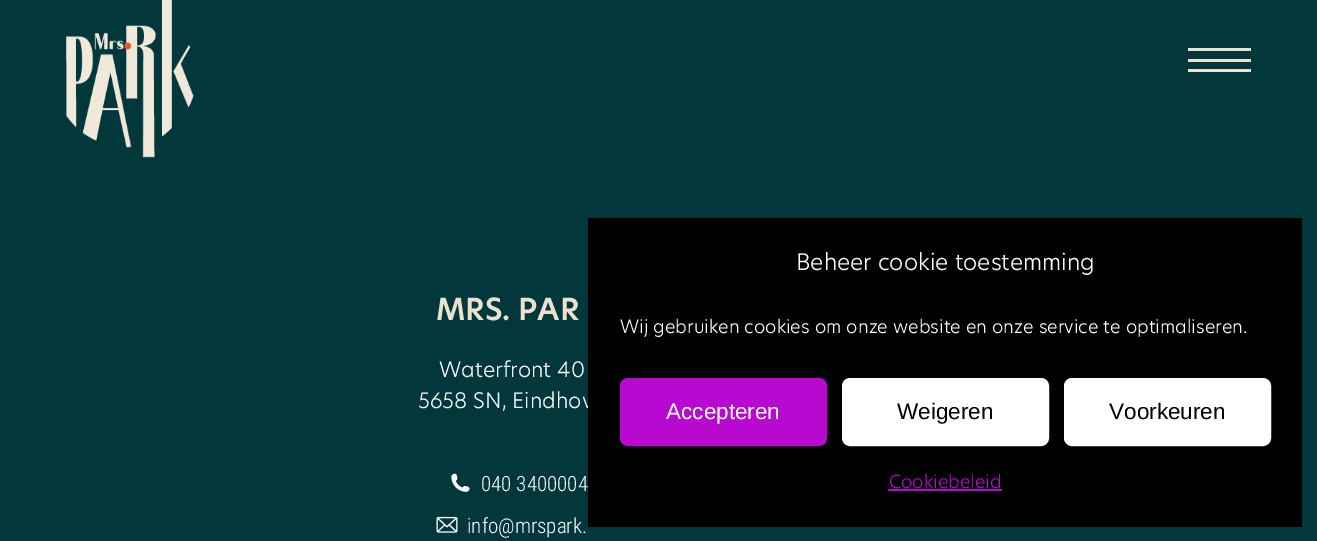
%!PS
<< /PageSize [1317 541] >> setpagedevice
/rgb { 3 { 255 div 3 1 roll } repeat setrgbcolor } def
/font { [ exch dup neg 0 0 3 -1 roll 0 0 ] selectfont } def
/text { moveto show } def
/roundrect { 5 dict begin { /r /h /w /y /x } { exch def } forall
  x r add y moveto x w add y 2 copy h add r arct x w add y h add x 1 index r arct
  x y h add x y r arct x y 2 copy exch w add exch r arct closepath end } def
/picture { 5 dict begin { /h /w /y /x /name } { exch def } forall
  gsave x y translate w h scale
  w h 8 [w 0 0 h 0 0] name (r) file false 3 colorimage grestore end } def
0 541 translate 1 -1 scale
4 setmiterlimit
2 56 59 rgb
0 0 1317 541 rectfill
(img_01.rgb) 66 0 128 158 picture
235 225 205 rgb
1188 48 63 3 rectfill
1188 59 63 3 rectfill
1188 69 63 3 rectfill
(img_02.rgb) 451 473 19 19 picture
(img_03.rgb) 436 516 22 17 picture
/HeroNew-SemiBold 30 font
(MRS. PAR) 436 320 text
/HeroNew-Light 21 font
255 255 255 rgb
(Waterfront 40) 439 377 text
(5658 SN, Eindhov) 418 408 text
/RobotoCondensed-Light 21 font
(040 3400004) 481 491 text
(info@mrspark.) 467 533 text
0 0 0 rgb
588 218 714 309 rectfill
/HeroNew-Light 22.5 font
255 255 255 rgb
(Beheer cookie toestemming) 796 270 text
/HeroNew-Light 18 font
(Wij gebruiken cookies om onze website en onze service te optimaliseren.) 620 333 text
184 9 209 rgb
621 379 205 66 7 roundrect gsave fill grestore
2 setlinewidth
stroke
/LiberationSans-Regular 22.5 font
255 255 255 rgb
(Accepteren) 666 419 text
843 379 205 66 7 roundrect gsave fill grestore
stroke
0 0 0 rgb
(Weigeren) 897 419 text
255 255 255 rgb
1065 379 205 66 7 roundrect gsave fill grestore
stroke
0 0 0 rgb
(Voorkeuren) 1109 419 text
/HeroNew-Light 18 font
184 9 209 rgb
(Cookiebeleid) 889 488 text
888 489 114 2 rectfill
showpage
